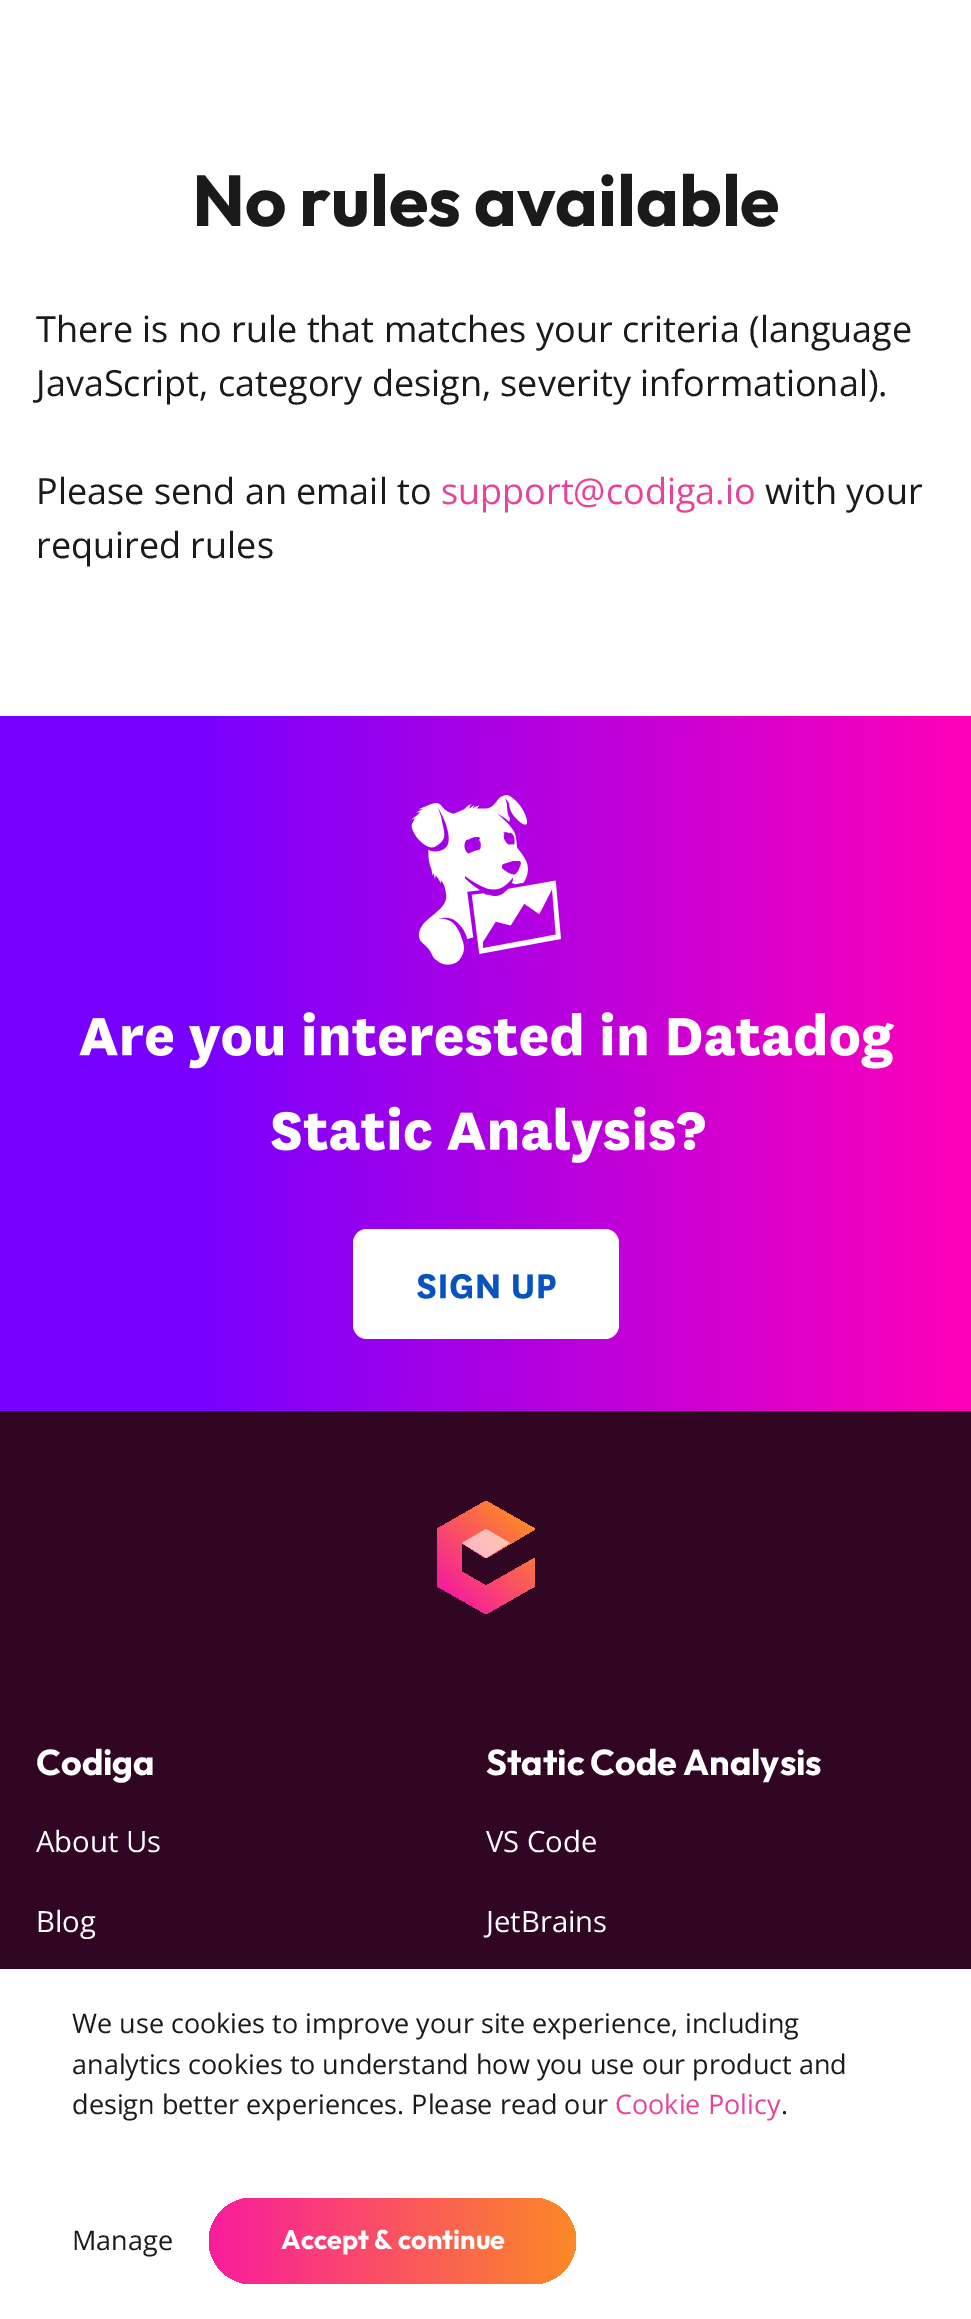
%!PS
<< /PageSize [971 2319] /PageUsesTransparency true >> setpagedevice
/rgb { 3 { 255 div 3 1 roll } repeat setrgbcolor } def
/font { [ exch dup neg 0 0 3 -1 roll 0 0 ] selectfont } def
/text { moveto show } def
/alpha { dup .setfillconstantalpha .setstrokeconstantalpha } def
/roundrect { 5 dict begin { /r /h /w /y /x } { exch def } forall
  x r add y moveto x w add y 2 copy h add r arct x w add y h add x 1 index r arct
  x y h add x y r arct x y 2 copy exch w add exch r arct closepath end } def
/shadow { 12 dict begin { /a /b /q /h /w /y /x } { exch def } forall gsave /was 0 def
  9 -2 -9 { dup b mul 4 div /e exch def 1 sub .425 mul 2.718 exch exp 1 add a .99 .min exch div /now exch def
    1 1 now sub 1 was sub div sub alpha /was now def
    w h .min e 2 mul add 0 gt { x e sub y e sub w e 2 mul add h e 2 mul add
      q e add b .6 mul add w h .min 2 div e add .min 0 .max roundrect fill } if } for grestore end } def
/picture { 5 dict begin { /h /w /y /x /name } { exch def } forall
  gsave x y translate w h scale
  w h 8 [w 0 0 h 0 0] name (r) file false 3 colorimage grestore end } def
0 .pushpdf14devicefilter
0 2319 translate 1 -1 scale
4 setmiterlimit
255 255 255 rgb
0 0 971 2319 rectfill
gsave 0 716 moveto 971 0 rlineto 0 695 rlineto -971 0 rlineto closepath clip newpath
<< /ShadingType 2 /ColorSpace /DeviceRGB /Coords [0 1063 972 1063] /Extend [true true] /Function << /FunctionType 3 /Domain [0 1] /Functions [<< /FunctionType 2 /Domain [0 1] /C0 [0.467 0 1] /C1 [0.467 0 1] /N 1 >> << /FunctionType 2 /Domain [0 1] /C0 [0.467 0 1] /C1 [1 0 0.722] /N 1 >>] /Bounds [0.2] /Encode [0 1 0 1] >> >> shfill grestore
(img_01.rgb) 411 795 150 170 picture
(img_02.rgb) 79 1012 816 57 picture
(img_03.rgb) 271 1106 434 57 picture
353 1229 266 110 14 roundrect fill
(img_04.rgb) 417 1273 139 26 picture
48 6 35 rgb
0 1411 971 558 rectfill
gsave 486 1586 moveto 49 -28 rlineto 0 28 rlineto -49 28 rlineto -49 -28 rlineto 0 -57 rlineto 49 -28 rlineto 49 28 rlineto -49 29 rlineto -24 -15 rlineto 0 29 rlineto closepath clip newpath
<< /ShadingType 2 /ColorSpace /DeviceRGB /Coords [448 1596 524 1519] /Extend [true true] /Function << /FunctionType 2 /Domain [0 1] /C0 [0.969 0.11 0.616] /C1 [0.988 0.537 0.149] /N 1 >> >> shfill grestore
0.6 alpha
255 255 255 rgb
510 1543 moveto -24 15 rlineto -24 -15 rlineto 24 -14 rlineto closepath fill
1 alpha
0 0 0 rgb
0 1964 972 351 0 22.5 0.1 shadow
255 255 255 rgb
0 1969 971 350 rectfill
gsave 209 2198 367 86 43 roundrect clip newpath
<< /ShadingType 2 /ColorSpace /DeviceRGB /Coords [209 2241 576 2241] /Extend [true true] /Function << /FunctionType 2 /Domain [0 1] /C0 [0.973 0.11 0.616] /C1 [0.988 0.537 0.149] /N 1 >> >> shfill grestore
/Outfit-Bold 72 font
26 26 26 rgb
192 226 moveto -1 0 32 (No rules available) widthshow
/OpenSans-Regular 36 font
(There is no rule that matches your criteria \(language) 36 342 text
(JavaScript, category design, severity informational\).) 36 396 text
(Please send an email to) 36 504 text
231 67 155 rgb
(support@codiga.io) 441 504 text
26 26 26 rgb
(with your) 765 504 text
(required rules) 36 558 text
/Outfit-Bold 36 font
255 255 255 rgb
(Codiga) 36 1775 text
/OpenSans-Regular 29.25 font
(About Us) 36 1852 text
(Blog) 36 1932 text
/Outfit-Bold 36 font
486 1775 moveto -1 0 32 (Static Code Analysis) widthshow
/OpenSans-Regular 29.25 font
(VS Code) 486 1852 text
(JetBrains) 486 1932 text
/OpenSans-Regular 27 font
26 26 26 rgb
(We use cookies to improve your site experience, including) 72 2033 text
(analytics cookies to understand how you use our product and) 72 2074 text
(design better experiences. Please read our) 72 2114 text
231 67 155 rgb
(Cookie Policy) 615 2114 text
26 26 26 rgb
(.) 781 2114 text
(Manage) 72 2250 text
/Outfit-Bold 27 font
255 255 255 rgb
(Accept & continue) 281 2249 text
.poppdf14devicefilter showpage
